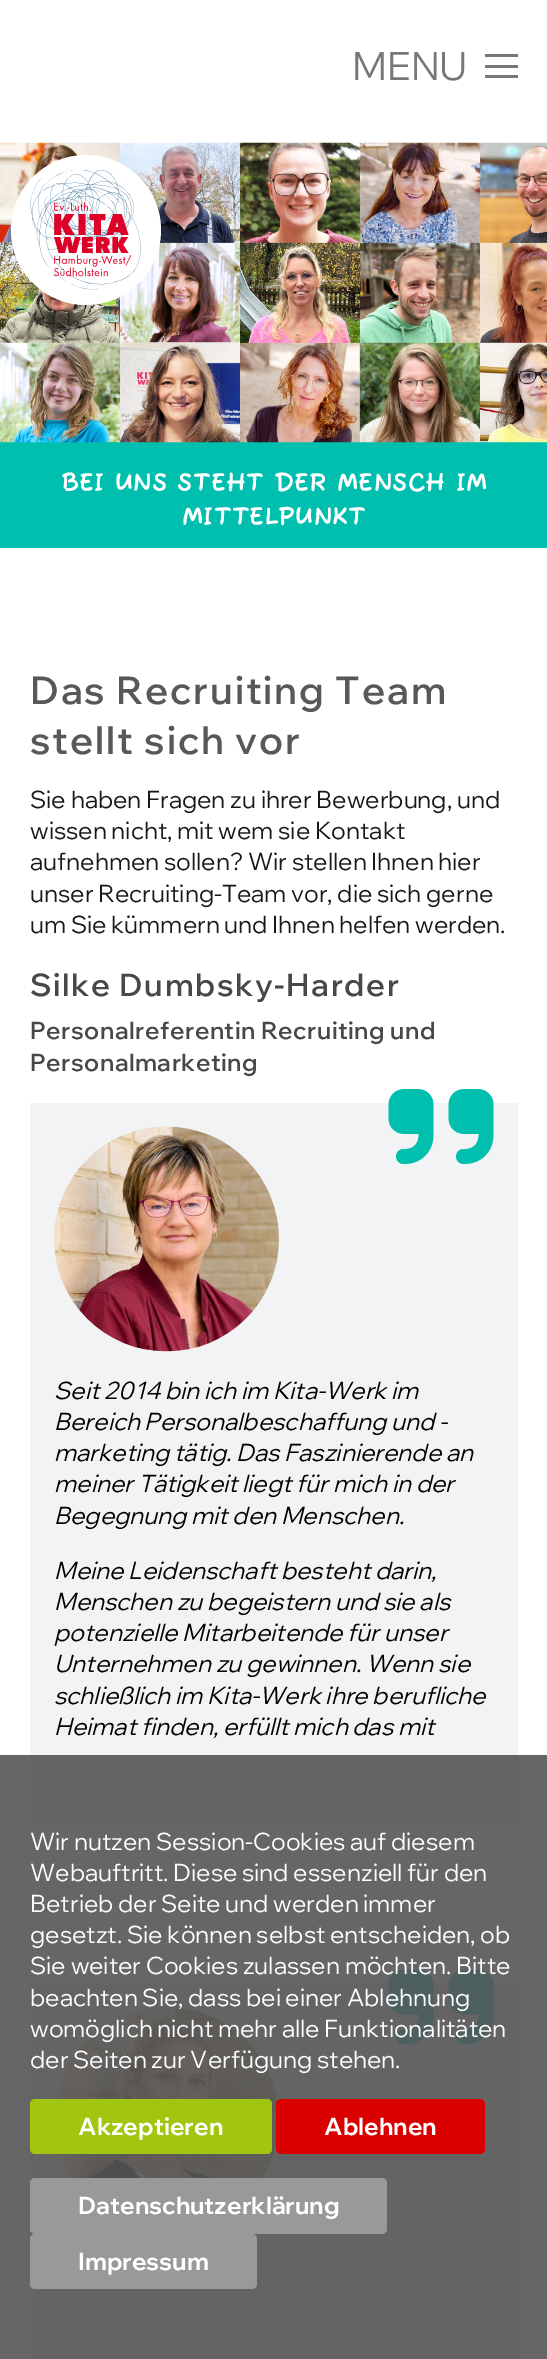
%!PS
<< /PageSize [547 2359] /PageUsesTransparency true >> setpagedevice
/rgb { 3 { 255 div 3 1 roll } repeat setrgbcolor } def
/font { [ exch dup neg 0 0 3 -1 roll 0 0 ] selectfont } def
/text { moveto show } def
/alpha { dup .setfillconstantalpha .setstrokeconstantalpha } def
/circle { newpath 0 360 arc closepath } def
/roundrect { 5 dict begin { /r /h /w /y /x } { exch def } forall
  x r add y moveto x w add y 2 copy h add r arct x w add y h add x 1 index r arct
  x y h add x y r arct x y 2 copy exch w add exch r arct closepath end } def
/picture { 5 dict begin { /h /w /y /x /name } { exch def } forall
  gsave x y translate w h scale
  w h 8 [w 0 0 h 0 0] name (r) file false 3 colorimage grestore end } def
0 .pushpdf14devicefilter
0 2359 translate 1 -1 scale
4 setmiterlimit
255 255 255 rgb
0 0 547 2359 rectfill
120 119 118 rgb
485 54 33 3 rectfill
485 65 33 3 rectfill
485 75 33 3 rectfill
0 191 175 rgb
0 442 547 106 rectfill
(img_01.rgb) 0 142 547 301 picture
255 255 255 rgb
86 230 75 circle fill
(img_02.rgb) 30 170 111 120 picture
242 243 244 rgb
30 1103 488 726 rectfill
(img_03.rgb) 388 1089 106 75 picture
(img_04.rgb) 54 1126 225 226 picture
30 1983 488 376 rectfill
(img_05.rgb) 56 2007 222 171 picture
(img_06.rgb) 388 1969 106 76 picture
0.9 alpha
85 85 85 rgb
0 1755 547 604 rectfill
1 alpha
162 197 16 rgb
30 2099 242 55 5 roundrect fill
219 0 0 rgb
276 2099 209 55 5 roundrect fill
153 153 153 rgb
30 2178 357 56 5 roundrect fill
30 2234 227 55 5 roundrect fill
/WixMadeforDisplay-Regular 39 font
120 119 118 rgb
(MENU) 352 80 text
/FuzzyBubbles-Bold 26.4 font
255 255 255 rgb
(BEI UNS STEHT DER MENSCH IM) 61 491 text
(MITTELPUNKT) 182 525 text
/WixMadeforDisplay-SemiBold 38.4 font
87 88 89 rgb
30 704 moveto 1.9 0 (Das Recruiting Team) ashow
30 754 moveto 1.9 0 (stellt sich vor) ashow
/WixMadeforDisplay-Regular 24 font
23 24 25 rgb
(Sie haben Fragen zu ihrer Bewerbung, und) 30 808 text
(wissen nicht, mit wem sie Kontakt) 30 839 text
(aufnehmen sollen? Wir stellen Ihnen hier) 30 870 text
(unser Recruiting-Team vor, die sich gerne) 30 902 text
(um Sie kümmern und Ihnen helfen werden.) 30 933 text
/WixMadeforDisplay-SemiBold 31.25 font
71 72 73 rgb
30 996 moveto 1.6 0 (Silke Dumbsky-Harder) ashow
/WixMadeforDisplay-SemiBold 24 font
30 1039 moveto 0.5 0 (Personalreferentin Recruiting und) ashow
30 1071 moveto 0.5 0 (Personalmarketing) ashow
/WixMadeforDisplay-Italic 24 font
0 0 0 rgb
(Seit 2014 bin ich im Kita-Werk im) 54 1399 text
(Bereich Personalbeschaffung und -) 54 1430 text
(marketing tätig. Das Faszinierende an) 54 1461 text
(meiner Tätigkeit liegt für mich in der) 54 1492 text
(Begegnung mit den Menschen.) 54 1524 text
(Meine Leidenschaft besteht darin,) 54 1579 text
(Menschen zu begeistern und sie als) 54 1610 text
(potenzielle Mitarbeitende für unser) 54 1641 text
(Unternehmen zu gewinnen. Wenn sie) 54 1672 text
(schließlich im Kita-Werk ihre berufliche) 54 1704 text
(Heimat finden, erfüllt mich das mit) 54 1735 text
/WixMadeforDisplay-Regular 24 font
255 255 255 rgb
(Wir nutzen Session-Cookies auf diesem) 30 1850 text
(Webauftritt. Diese sind essenziell für den) 30 1881 text
(Betrieb der Seite und werden immer) 30 1912 text
(gesetzt. Sie können selbst entscheiden, ob) 30 1943 text
(Sie weiter Cookies zulassen möchten. Bitte) 30 1974 text
(beachten Sie, dass bei einer Ablehnung) 30 2006 text
(womöglich nicht mehr alle Funktionalitäten) 30 2037 text
(der Seiten zur Verfügung stehen.) 30 2068 text
/WixMadeforDisplay-Bold 24 font
(Akzeptieren) 78 2135 text
(Ablehnen) 324 2135 text
(Datenschutzerklärung) 78 2214 text
(Impressum) 78 2270 text
.poppdf14devicefilter showpage
